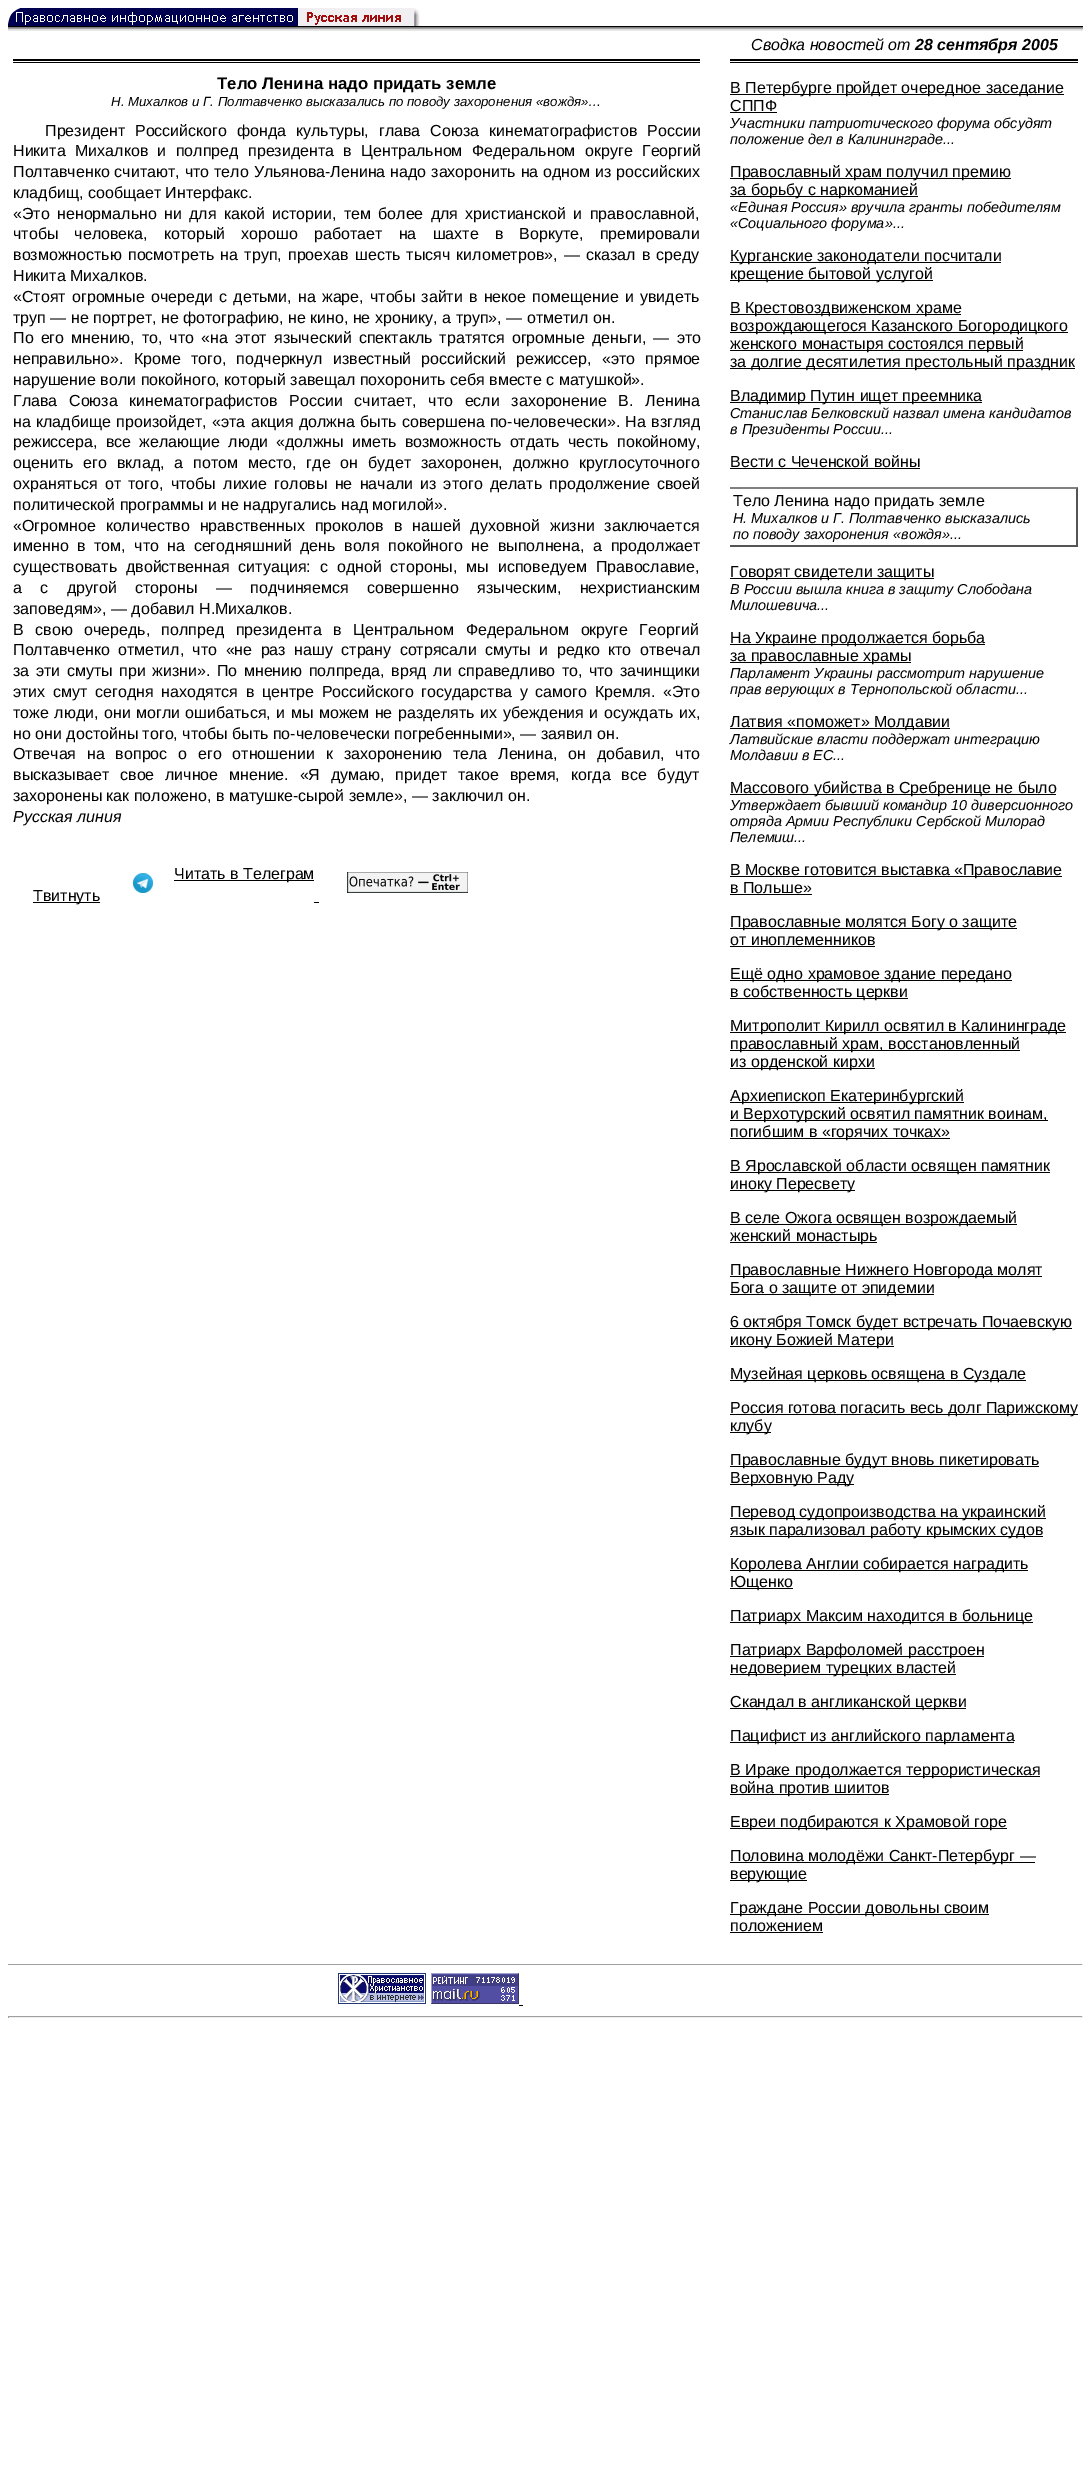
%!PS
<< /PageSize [1091 2474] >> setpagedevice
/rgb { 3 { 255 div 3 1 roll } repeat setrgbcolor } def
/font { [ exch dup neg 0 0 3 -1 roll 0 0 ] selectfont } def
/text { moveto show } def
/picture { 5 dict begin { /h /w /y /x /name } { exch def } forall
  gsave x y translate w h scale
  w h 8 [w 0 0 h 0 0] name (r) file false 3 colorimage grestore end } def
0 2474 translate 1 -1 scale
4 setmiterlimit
255 255 255 rgb
0 0 1091 2474 rectfill
(img_01.rgb) 8 8 412 18 picture
0 0 0 rgb
8 26 1075 1 rectfill
128 128 128 rgb
8 27 1075 1 rectfill
162 162 162 rgb
8 28 1075 1 rectfill
221 221 221 rgb
8 29 1075 1 rectfill
232 232 232 rgb
8 30 1075 1 rectfill
0 0 0 rgb
13 59 687 2 rectfill
13 62 687 1 rectfill
(img_02.rgb) 133 873 20 20 picture
174 880 140 1 rectfill
314 902 5 1 rectfill
(img_03.rgb) 347 872 121 21 picture
33 902 67 1 rectfill
730 59 348 2 rectfill
730 62 348 1 rectfill
730 94 334 1 rectfill
730 112 47 1 rectfill
730 178 281 1 rectfill
730 196 188 1 rectfill
730 262 271 1 rectfill
730 280 203 1 rectfill
730 314 231 1 rectfill
730 332 338 1 rectfill
730 350 293 1 rectfill
730 368 345 1 rectfill
730 402 252 1 rectfill
730 468 190 1 rectfill
128 128 128 rgb
730 487 moveto 348 0 rlineto -2 2 rlineto -346 0 rlineto closepath fill
85 85 85 rgb
1078 487 moveto 0 60 rlineto -2 -2 rlineto 0 -56 rlineto closepath fill
730 545 348 2 rectfill
0 0 0 rgb
730 578 204 1 rectfill
730 644 255 1 rectfill
730 662 181 1 rectfill
730 728 220 1 rectfill
730 794 326 1 rectfill
730 876 332 1 rectfill
730 894 82 1 rectfill
730 928 287 1 rectfill
730 946 145 1 rectfill
730 980 282 1 rectfill
730 998 178 1 rectfill
730 1032 336 1 rectfill
730 1050 290 1 rectfill
730 1068 145 1 rectfill
730 1102 234 1 rectfill
730 1120 318 1 rectfill
730 1138 220 1 rectfill
730 1172 320 1 rectfill
730 1190 125 1 rectfill
730 1224 287 1 rectfill
730 1242 147 1 rectfill
730 1276 312 1 rectfill
730 1294 204 1 rectfill
730 1328 342 1 rectfill
730 1346 164 1 rectfill
730 1380 296 1 rectfill
730 1414 348 1 rectfill
730 1432 41 1 rectfill
730 1466 309 1 rectfill
730 1484 124 1 rectfill
730 1518 316 1 rectfill
730 1536 313 1 rectfill
730 1570 298 1 rectfill
730 1588 63 1 rectfill
730 1622 303 1 rectfill
730 1656 254 1 rectfill
730 1674 226 1 rectfill
730 1708 236 1 rectfill
730 1742 284 1 rectfill
730 1776 310 1 rectfill
730 1794 159 1 rectfill
730 1828 277 1 rectfill
730 1862 305 1 rectfill
730 1880 77 1 rectfill
730 1914 259 1 rectfill
730 1932 93 1 rectfill
159 159 159 rgb
8 1964 1075 1 rectfill
238 238 238 rgb
1082 1964 1 1 rectfill
(img_04.rgb) 338 1973 88 31 picture
(img_05.rgb) 431 1973 88 31 picture
0 0 0 rgb
519 2005 4 1 rectfill
159 159 159 rgb
8 2016 1075 1 rectfill
238 238 238 rgb
1082 2016 1 2 rectfill
8 2017 1075 1 rectfill
159 159 159 rgb
8 2016 1 2 rectfill
/LiberationSans-Italic 16 font
0 0 0 rgb
(Сводка новостей от) 751 50 text
/LiberationSans-BoldItalic 16 font
(28 сентября 2005) 915 50 text
/LiberationSans-Bold 16.75 font
(Тело Ленина надо придать земле) 217 89 text
/LiberationSans-Italic 13.25 font
(Н. Михалков и Г. Полтавченко высказались по поводу захоронения «вождя»…) 111 106 text
/LiberationSans-Regular 16 font
45 136 moveto 5.5 0 32 (Президент Российского фонда культуры, глава Союза кинематографистов России) widthshow
13 156 moveto 5 0 32 (Никита Михалков и полпред президента в Центральном Федеральном округе Георгий) widthshow
13 177 moveto 0.5 0 32 (Полтавченко считают, что тело Ульянова-Ленина надо захоронить на одном из российских) widthshow
(кладбищ, сообщает Интерфакс.) 13 198 text
13 219 moveto 2.9 0 32 («Это ненормально ни для какой истории, тем более для христианской и православной,) widthshow
13 239 moveto 11.75 0 32 (чтобы человека, который хорошо работает на шахте в Воркуте, премировали) widthshow
13 260 moveto 1.75 0 32 (возможностью посмотреть на труп, проехав шесть тысяч километров», — сказал в среду) widthshow
(Никита Михалков.) 13 281 text
13 302 moveto 1.75 0 32 («Стоят огромные очереди с детьми, на жаре, чтобы зайти в некое помещение и увидеть) widthshow
(труп — не портрет, не фотографию, не кино, не хронику, а труп», — отметил он.) 13 323 text
13 343 moveto 2.75 0 32 (По его мнению, то, что «на этот языческий спектакль тратятся огромные деньги, — это) widthshow
13 364 moveto 5.75 0 32 (неправильно». Кроме того, подчеркнул известный российский режиссер, «это прямое) widthshow
(нарушение воли покойного, который завещал похоронить себя вместе с матушкой».) 13 385 text
13 406 moveto 7.25 0 32 (Глава Союза кинематографистов России считает, что если захоронение В. Ленина) widthshow
13 427 moveto 0.9 0 32 (на кладбище произойдет, «эта акция должна быть совершена по-человечески». На взгляд) widthshow
13 447 moveto 3.75 0 32 (режиссера, все желающие люди «должны иметь возможность отдать честь покойному,) widthshow
13 468 moveto 5.5 0 32 (оценить его вклад, а потом место, где он будет захоронен, должно круглосуточного) widthshow
13 489 moveto 2.75 0 32 (охраняться от того, чтобы лихие головы не начали из этого делать продолжение своей) widthshow
(политической программы и не надругались над могилой».) 13 510 text
13 531 moveto 5.5 0 32 («Огромное количество нравственных проколов в нашей духовной жизни заключается) widthshow
13 551 moveto 4.1 0 32 (именно в том, что на сегодняшний день воля покойного не выполнена, а продолжает) widthshow
13 572 moveto 4.5 0 32 (существовать двойственная ситуация: с одной стороны, мы исповедуем Православие,) widthshow
13 593 moveto 14 0 32 (а с другой стороны — подчиняемся совершенно языческим, нехристианским) widthshow
(заповедям», — добавил Н.Михалков.) 13 614 text
13 635 moveto 7 0 32 (В свою очередь, полпред президента в Центральном Федеральном округе Георгий) widthshow
13 655 moveto 4 0 32 (Полтавченко отметил, что «не раз нашу страну сотрясали смуты и редко кто отвечал) widthshow
13 676 moveto 2.1 0 32 (за эти смуты при жизни». По мнению полпреда, вряд ли справедливо то, что зачинщики) widthshow
13 697 moveto 3.25 0 32 (этих смут сегодня находятся в центре Российского государства у самого Кремля. «Это) widthshow
13 718 moveto 1 0 32 (тоже люди, они могли ошибаться, и мы можем не разделять их убеждения и осуждать их,) widthshow
(но они достойны того, чтобы быть по-человечески погребенными», — заявил он.) 13 739 text
13 759 moveto 6.4 0 32 (Отвечая на вопрос о его отношении к захоронению тела Ленина, он добавил, что) widthshow
13 780 moveto 6.25 0 32 (высказывает свое личное мнение. «Я думаю, придет такое время, когда все будут) widthshow
(захоронены как положено, в матушке-сырой земле», — заключил он.) 13 801 text
/LiberationSans-Italic 16 font
(Русская линия) 13 822 text
/LiberationSans-Regular 16 font
(Читать в Телеграм) 174 879 text
(Твитнуть) 33 901 text
(В Петербурге пройдет очередное заседание) 730 93 text
(СППФ) 730 111 text
/LiberationSans-Italic 14.4 font
(Участники патриотического форума обсудят) 730 128 text
(положение дел в Калининграде...) 730 144 text
/LiberationSans-Regular 16 font
(Православный храм получил премию) 730 177 text
(за борьбу с наркоманией) 730 195 text
/LiberationSans-Italic 14.4 font
(«Единая Россия» вручила гранты победителям) 730 212 text
(«Социального форума»...) 730 228 text
/LiberationSans-Regular 16 font
(Курганские законодатели посчитали) 730 261 text
(крещение бытовой услугой) 730 279 text
(В Крестовоздвиженском храме) 730 313 text
(возрождающегося Казанского Богородицкого) 730 331 text
(женского монастыря состоялся первый) 730 349 text
(за долгие десятилетия престольный праздник) 730 367 text
(Владимир Путин ищет преемника) 730 401 text
/LiberationSans-Italic 14.4 font
(Станислав Белковский назвал имена кандидатов) 730 418 text
(в Президенты России...) 730 434 text
/LiberationSans-Regular 16 font
(Вести с Чеченской войны) 730 467 text
(Тело Ленина надо придать земле) 733 506 text
/LiberationSans-Italic 14.4 font
(Н. Михалков и Г. Полтавченко высказались) 733 523 text
(по поводу захоронения «вождя»...) 733 539 text
/LiberationSans-Regular 16 font
(Говорят свидетели защиты) 730 577 text
/LiberationSans-Italic 14.4 font
(В России вышла книга в защиту Слободана) 730 594 text
(Милошевича...) 730 610 text
/LiberationSans-Regular 16 font
(На Украине продолжается борьба) 730 643 text
(за православные храмы) 730 661 text
/LiberationSans-Italic 14.4 font
(Парламент Украины рассмотрит нарушение) 730 678 text
(прав верующих в Тернопольской области...) 730 694 text
/LiberationSans-Regular 16 font
(Латвия «поможет» Молдавии) 730 727 text
/LiberationSans-Italic 14.4 font
(Латвийские власти поддержат интеграцию) 730 744 text
(Молдавии в ЕС...) 730 760 text
/LiberationSans-Regular 16 font
(Массового убийства в Сребренице не было) 730 793 text
/LiberationSans-Italic 14.4 font
(Утверждает бывший командир 10 диверсионного) 730 810 text
(отряда Армии Республики Сербской Милорад) 730 826 text
(Пелемиш...) 730 842 text
/LiberationSans-Regular 16 font
(В Москве готовится выставка «Православие) 730 875 text
(в Польше») 730 893 text
(Православные молятся Богу о защите) 730 927 text
(от иноплеменников) 730 945 text
(Ещё одно храмовое здание передано) 730 979 text
(в собственность церкви) 730 997 text
(Митрополит Кирилл освятил в Калининграде) 730 1031 text
(православный храм, восстановленный) 730 1049 text
(из орденской кирхи) 730 1067 text
(Архиепископ Екатеринбургский) 730 1101 text
(и Верхотурский освятил памятник воинам,) 730 1119 text
(погибшим в «горячих точках») 730 1137 text
(В Ярославской области освящен памятник) 730 1171 text
(иноку Пересвету) 730 1189 text
(В селе Ожога освящен возрождаемый) 730 1223 text
(женский монастырь) 730 1241 text
(Православные Нижнего Новгорода молят) 730 1275 text
(Бога о защите от эпидемии) 730 1293 text
(6 октября Томск будет встречать Почаевскую) 730 1327 text
(икону Божией Матери) 730 1345 text
(Музейная церковь освящена в Суздале) 730 1379 text
(Россия готова погасить весь долг Парижскому) 730 1413 text
(клубу) 730 1431 text
(Православные будут вновь пикетировать) 730 1465 text
(Верховную Раду) 730 1483 text
(Перевод судопроизводства на украинский) 730 1517 text
(язык парализовал работу крымских судов) 730 1535 text
(Королева Англии собирается наградить) 730 1569 text
(Ющенко) 730 1587 text
(Патриарх Максим находится в больнице) 730 1621 text
(Патриарх Варфоломей расстроен) 730 1655 text
(недоверием турецких властей) 730 1673 text
(Скандал в англиканской церкви) 730 1707 text
(Пацифист из английского парламента) 730 1741 text
(В Ираке продолжается террористическая) 730 1775 text
(война против шиитов) 730 1793 text
(Евреи подбираются к Храмовой горе) 730 1827 text
(Половина молодёжи Санкт-Петербург —) 730 1861 text
(верующие) 730 1879 text
(Граждане России довольны своим) 730 1913 text
(положением) 730 1931 text
showpage
